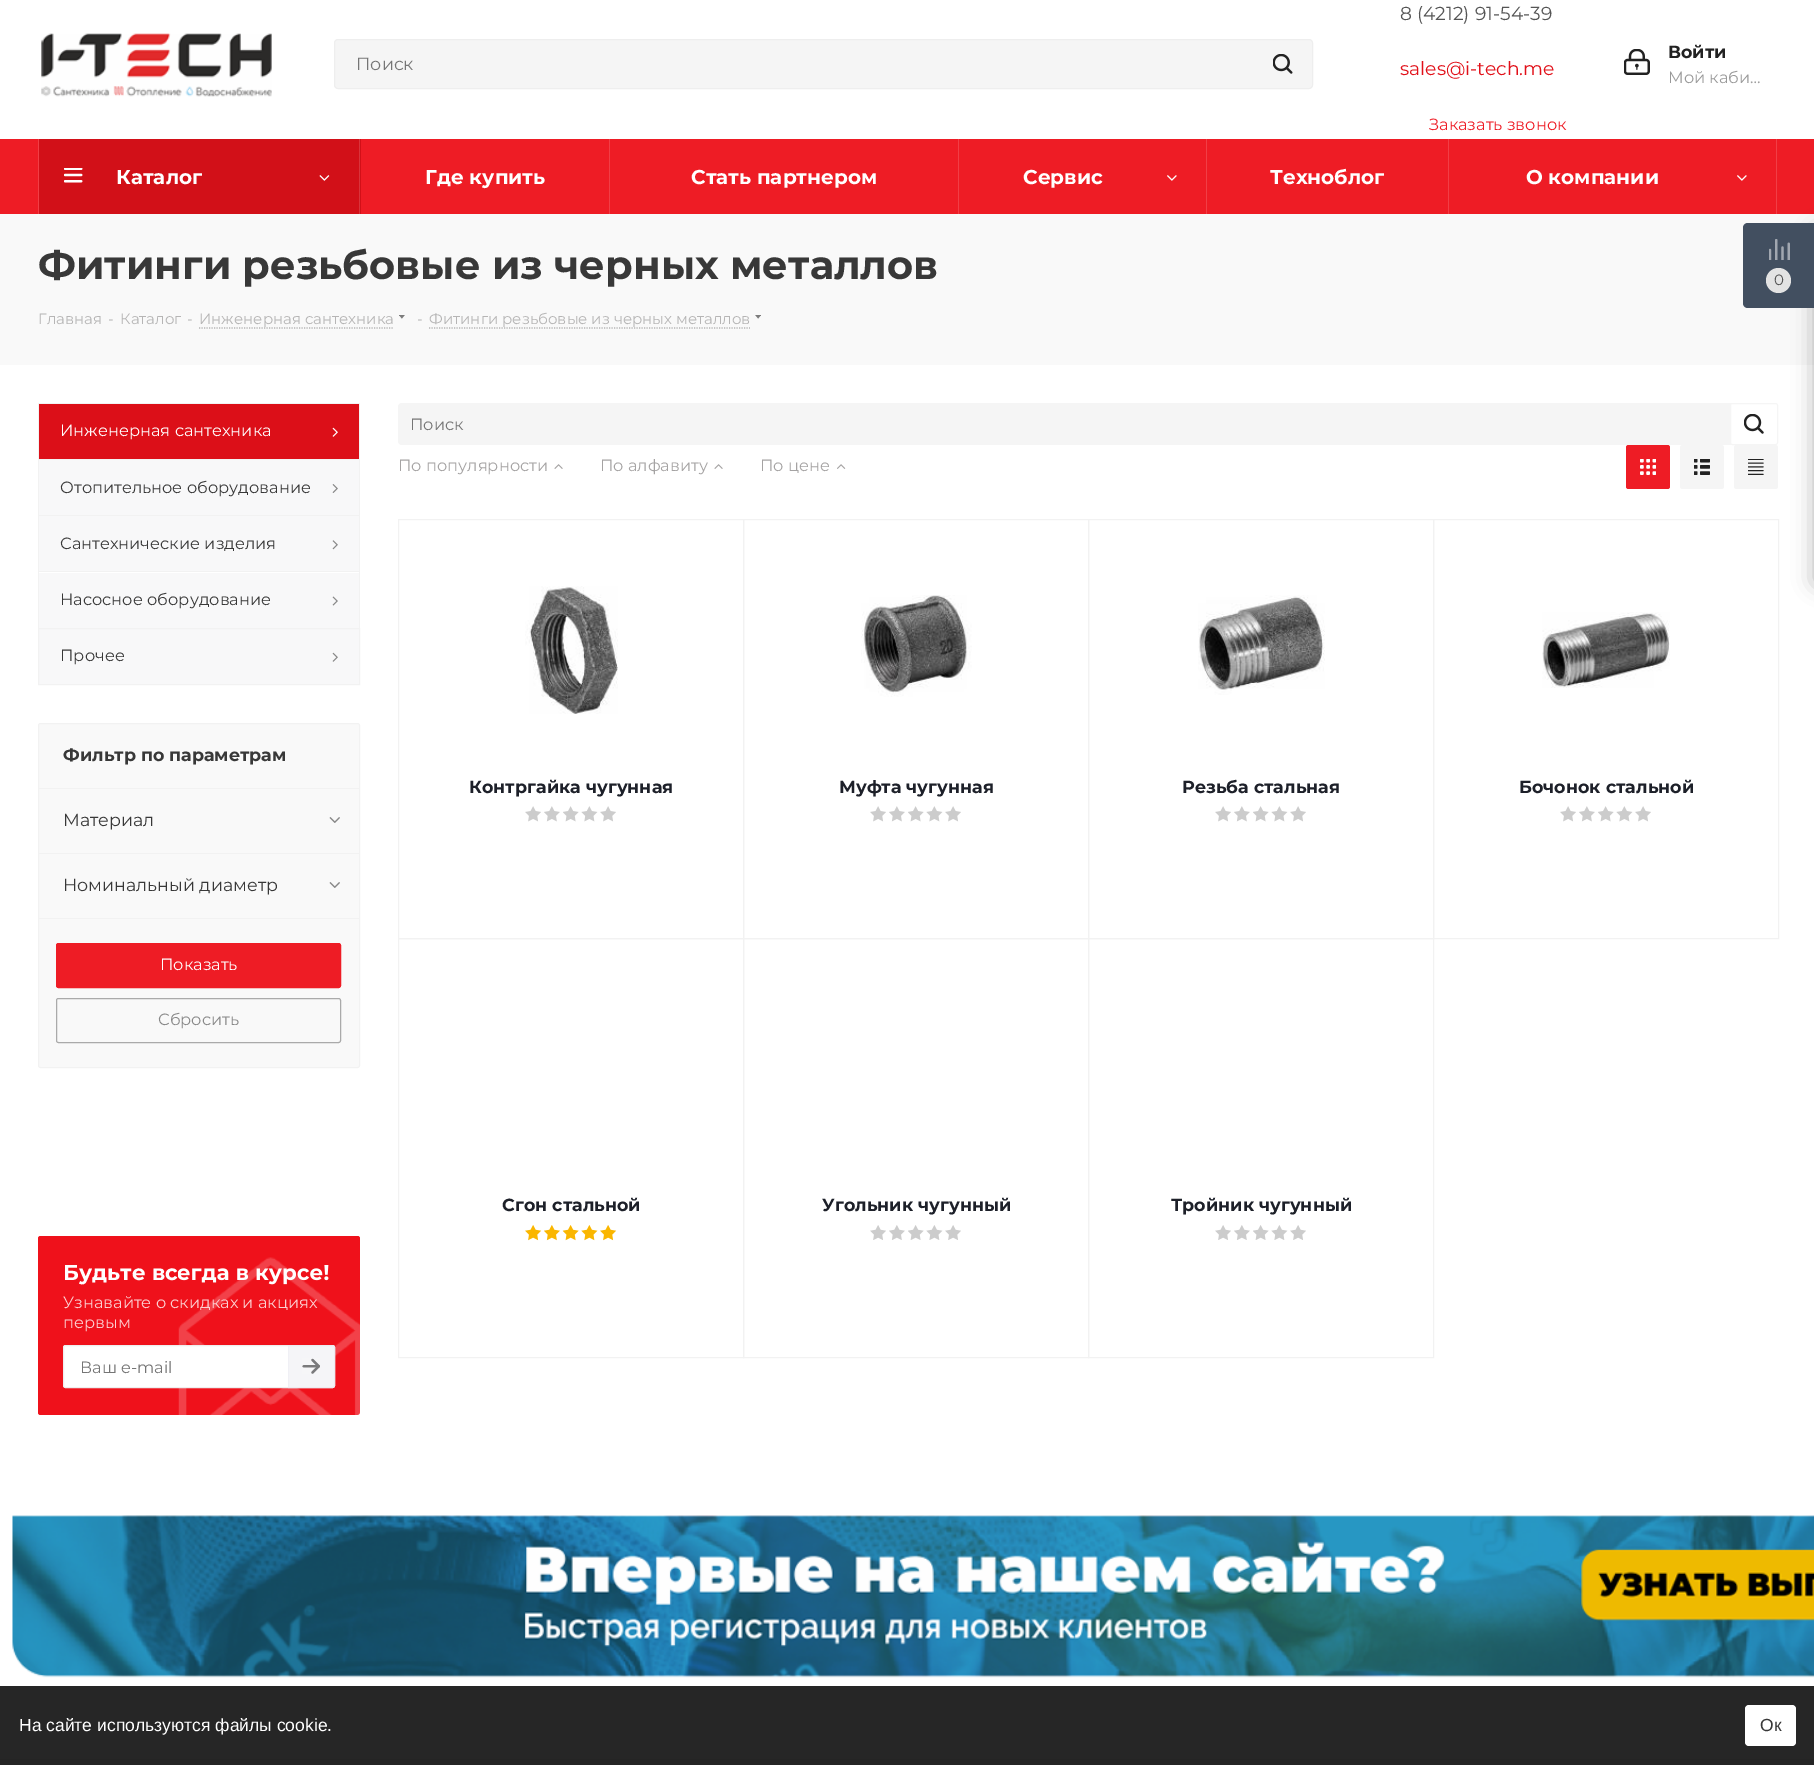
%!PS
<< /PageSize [1814 1765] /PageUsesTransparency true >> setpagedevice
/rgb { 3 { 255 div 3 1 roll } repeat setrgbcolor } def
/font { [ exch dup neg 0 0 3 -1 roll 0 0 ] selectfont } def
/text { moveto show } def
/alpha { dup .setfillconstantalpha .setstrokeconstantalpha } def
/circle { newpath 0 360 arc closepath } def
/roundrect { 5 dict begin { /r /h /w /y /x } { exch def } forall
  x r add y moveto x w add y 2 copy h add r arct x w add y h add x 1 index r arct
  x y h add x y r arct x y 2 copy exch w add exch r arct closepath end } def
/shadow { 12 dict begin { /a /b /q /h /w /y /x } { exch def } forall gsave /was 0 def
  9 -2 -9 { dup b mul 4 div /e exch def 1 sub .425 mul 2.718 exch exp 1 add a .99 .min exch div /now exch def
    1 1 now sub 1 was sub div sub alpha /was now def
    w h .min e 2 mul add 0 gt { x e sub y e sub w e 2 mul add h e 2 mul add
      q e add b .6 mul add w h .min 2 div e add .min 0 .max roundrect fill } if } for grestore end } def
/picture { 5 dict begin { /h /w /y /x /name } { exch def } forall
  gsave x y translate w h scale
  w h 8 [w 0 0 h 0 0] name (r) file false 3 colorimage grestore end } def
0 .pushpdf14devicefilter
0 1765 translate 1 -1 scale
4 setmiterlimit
255 255 255 rgb
0 0 1814 1765 rectfill
38 38 38 rgb
0 1686 1814 73 rectfill
(img_01.rgb) 38 33 258 64 picture
245 245 245 rgb
334.5 39.5 978 49 3.5 roundrect gsave fill grestore
238 238 238 rgb
stroke
(img_02.rgb) 1273 54 20 20 picture
(img_03.rgb) 1624 49 26 26 picture
238 28 37 rgb
0 139 1814 75 rectfill
241 62 70 rgb
38 139 1 75 rectfill
210 16 24 rgb
39 139 322 75 rectfill
217 52 59 rgb
359 139 1 75 rectfill
(img_04.rgb) 64 168 19 15 picture
(img_05.rgb) 319 175 11 6 picture
241 62 70 rgb
609 139 1 75 rectfill
958 139 1 75 rectfill
1206 139 1 75 rectfill
(img_06.rgb) 1167 175 10 6 picture
1448 139 1 75 rectfill
1776 139 1 75 rectfill
(img_06.rgb) 1737 175 10 6 picture
249 249 249 rgb
0 214 1814 151 rectfill
180 180 180 rgb
1.2 setlinewidth
[1.25 1.25] 0 setdash
199 328 moveto 195 0 rlineto stroke
(img_07.rgb) 399 315 6 4 picture
429 328 moveto 321 0 rlineto stroke
(img_08.rgb) 755 315 6 4 picture
220 15 24 rgb
39 404 320 55 rectfill
242 242 242 rgb
38 403 322 1 rectfill
359 403 1 56 rectfill
38 403 1 56 rectfill
(img_09.rgb) 332 427 6 10 picture
248 248 249 rgb
39 460 320 55 rectfill
242 242 242 rgb
38 459 322 1 rectfill
359 459 1 56 rectfill
38 459 1 56 rectfill
(img_10.rgb) 332 484 6 9 picture
248 248 249 rgb
39 516 320 55 rectfill
242 242 242 rgb
38 515 322 1 rectfill
359 515 1 56 rectfill
38 515 1 56 rectfill
(img_11.rgb) 332 540 6 10 picture
248 248 249 rgb
39 573 320 55 rectfill
242 242 242 rgb
38 571 322 1 rectfill
359 571 1 57 rectfill
38 571 1 57 rectfill
(img_12.rgb) 332 596 6 10 picture
248 248 249 rgb
38.5 628.5 moveto 321 0 rlineto 0 56 rlineto -321 0 rlineto closepath gsave fill grestore
242 242 242 rgb
1 setlinewidth
[] 0 setdash
stroke
(img_13.rgb) 332 652 6 10 picture
249 249 249 rgb
38.5 723.5 321 344 2 roundrect gsave fill grestore
242 242 242 rgb
stroke
39 788 320 1 rectfill
39 853 320 1 rectfill
(img_14.rgb) 329 817 11 6 picture
39 918 320 1 rectfill
(img_14.rgb) 329 882 11 6 picture
238 28 37 rgb
56.5 943.5 284 44 2 roundrect gsave fill grestore
stroke
170 170 170 rgb
56.5 998.5 284 44 2 roundrect stroke
239 17 27 rgb
38 1236 322 179 2.5 roundrect fill
245 245 245 rgb
398 403 1380 42 4 roundrect fill
255 255 255 rgb
1730.5 403.5 47 41 2 roundrect gsave fill grestore
245 245 245 rgb
stroke
(img_17.rgb) 1744 414 20 20 picture
(img_18.rgb) 554 464 9 5 picture
(img_18.rgb) 714 464 9 5 picture
(img_19.rgb) 837 464 9 5 picture
238 28 37 rgb
1626 445 44 44 2.5 roundrect fill
(img_20.rgb) 1640 459 16 16 picture
245 245 245 rgb
1680 445 44 44 2.5 roundrect fill
(img_21.rgb) 1694 459 16 16 picture
1734 445 44 44 2.5 roundrect fill
(img_22.rgb) 1748 459 16 16 picture
242 242 242 rgb
398.5 519.5 345 419 rectstroke
(img_23.rgb) 525 586 93 128 picture
(img_24.rgb) 525 806 16 16 picture
(img_25.rgb) 544 806 16 16 picture
(img_26.rgb) 563 806 16 16 picture
(img_27.rgb) 581 806 17 16 picture
(img_24.rgb) 600 806 16 16 picture
743.5 519.5 345 419 rectstroke
(img_28.rgb) 861 595 111 102 picture
(img_24.rgb) 870 806 16 16 picture
(img_25.rgb) 889 806 16 16 picture
(img_26.rgb) 908 806 16 16 picture
(img_27.rgb) 926 806 17 16 picture
(img_24.rgb) 945 806 16 16 picture
1088.5 519.5 345 419 rectstroke
(img_29.rgb) 1198 595 127 100 picture
(img_24.rgb) 1215 806 16 16 picture
(img_25.rgb) 1234 806 16 16 picture
(img_26.rgb) 1253 806 16 16 picture
(img_27.rgb) 1271 806 17 16 picture
(img_24.rgb) 1290 806 16 16 picture
1433.5 519.5 345 419 rectstroke
(img_30.rgb) 1542 612 128 76 picture
(img_24.rgb) 1560 806 16 16 picture
(img_25.rgb) 1579 806 16 16 picture
(img_26.rgb) 1598 806 16 16 picture
(img_27.rgb) 1616 806 17 16 picture
(img_24.rgb) 1635 806 16 16 picture
398.5 938.5 345 419 rectstroke
(img_31.rgb) 525 1225 17 16 picture
(img_32.rgb) 544 1225 19 16 picture
(img_33.rgb) 563 1225 16 16 picture
(img_34.rgb) 581 1225 17 16 picture
(img_31.rgb) 600 1225 17 16 picture
743.5 938.5 345 419 rectstroke
(img_35.rgb) 870 1225 16 15 picture
(img_36.rgb) 889 1225 16 15 picture
(img_37.rgb) 908 1225 16 15 picture
(img_38.rgb) 926 1225 17 15 picture
(img_35.rgb) 945 1225 16 15 picture
1088.5 938.5 345 419 rectstroke
(img_35.rgb) 1215 1225 16 15 picture
(img_36.rgb) 1234 1225 16 15 picture
(img_37.rgb) 1253 1225 16 15 picture
(img_38.rgb) 1271 1225 17 15 picture
(img_35.rgb) 1290 1225 16 15 picture
(img_39.rgb) 12 1515 1802 163 picture
44 44 44 rgb
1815 230 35 354 2.5 11 0.4 shadow
66 79 96 rgb
1748 223 moveto 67 0 rlineto 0 85 rlineto -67 0 rlineto -3 0 -5 -2 -5 -5 rcurveto 0 -75 rlineto 0 -3 2 -5 5 -5 rcurveto closepath fill
(img_40.rgb) 1769 239 21 21 picture
227 227 227 rgb
1778.5 280.5 12.5 circle fill
255 255 255 rgb
1745 1705 51 41 4 roundrect fill
36 36 36 rgb
0 1759 1814 1 rectfill
37 37 37 rgb
0 1760 1814 5 rectfill
/Montserrat-Regular 17.5 font
117 117 117 rgb
(Поиск) 356 70 text
/Montserrat-Regular 18.75 font
85 85 85 rgb
(8 \(4212\) 91-54-39) 1400 20 text
225 16 25 rgb
(sales@i-tech.me) 1400 75 text
/Montserrat-Regular 16.25 font
238 28 37 rgb
(Заказать звонок) 1429 130 text
/Montserrat-Bold 17.5 font
34 34 34 rgb
(Войти) 1668 58 text
/Montserrat-Regular 16.25 font
153 153 153 rgb
(Мой каби…) 1668 83 text
/Montserrat-Bold 20 font
255 255 255 rgb
(Каталог) 116 184 text
(Где купить) 425 184 text
(Стать партнером) 691 184 text
(Сервис) 1023 184 text
(Техноблог) 1270 184 text
(О компании) 1526 184 text
/Montserrat-Bold 40 font
56 56 56 rgb
(Фитинги резьбовые из черных металлов) 38 279 text
/Montserrat-Regular 15 font
182 181 181 rgb
(Главная) 38 324 text
(-) 108 324 text
(Каталог) 120 324 text
(-) 187 324 text
(Инженерная сантехника) 199 324 text
(-) 417 324 text
(Фитинги резьбовые из черных металлов) 429 324 text
/Montserrat-Regular 16.25 font
255 255 255 rgb
(Инженерная сантехника) 60 436 text
56 56 56 rgb
(Отопительное оборудование) 60 493 text
(Сантехнические изделия) 60 549 text
(Насосное оборудование) 60 605 text
(Прочее) 60 661 text
/Montserrat-Bold 17.5 font
(Фильтр по параметрам) 63 761 text
/Montserrat-Regular 17.5 font
(Материал) 63 826 text
(Номинальный диаметр) 63 891 text
/Montserrat-Regular 16.25 font
255 255 255 rgb
(Показать) 160 970 text
136 136 136 rgb
(Сбросить) 158 1025 text
/Montserrat-Bold 21.5 font
255 255 255 rgb
(Будьте всегда в курсе!) 63 1280 text
(img_15.rgb) 178 1257 182 158 picture
/Montserrat-Regular 16.25 font
252 208 210 rgb
(Узнавайте о скидках и акциях) 63 1308 text
(первым) 63 1328 text
255 255 255 rgb
63.5 1345.5 271 42 2 roundrect gsave fill grestore
238 238 238 rgb
stroke
117 117 117 rgb
(Ваш e-mail) 80 1373 text
0.5 alpha
236 236 242 rgb
288 1345 moveto 44.5 0 rlineto 1.5 0 2.5 1 2.5 2.5 rcurveto 0 38 rlineto 0 1.5 -1 2.5 -2.5 2.5 rcurveto -44.5 0 rlineto closepath fill
1 alpha
(img_16.rgb) 302 1358 18 16 picture
0.5 alpha
288.5 1345.5 moveto 44 0 rlineto 1 0 2 1 2 2 rcurveto 0 38 rlineto 0 1 -1 2 -2 2 rcurveto -44 0 rlineto closepath stroke
1 alpha
117 117 117 rgb
(Поиск) 410 430 text
165 163 163 rgb
(По популярности) 398 471 text
(По алфавиту) 600 471 text
(По цене) 760 471 text
/Montserrat-Bold 17.5 font
29 32 41 rgb
(Контргайка чугунная) 469 793 text
(Муфта чугунная) 839 793 text
(Резьба стальная) 1182 793 text
(Бочонок стальной) 1519 793 text
(Сгон стальной) 502 1211 text
(Угольник чугунный) 822 1211 text
(Тройник чугунный) 1171 1211 text
/Montserrat-Regular 15 font
85 85 85 rgb
(0) 1774 285 text
/LiberationSans-Regular 17.5 font
255 255 255 rgb
(На сайте используются файлы cookie.) 19 1731 text
56 56 56 rgb
(Ок) 1760 1731 text
.poppdf14devicefilter showpage
